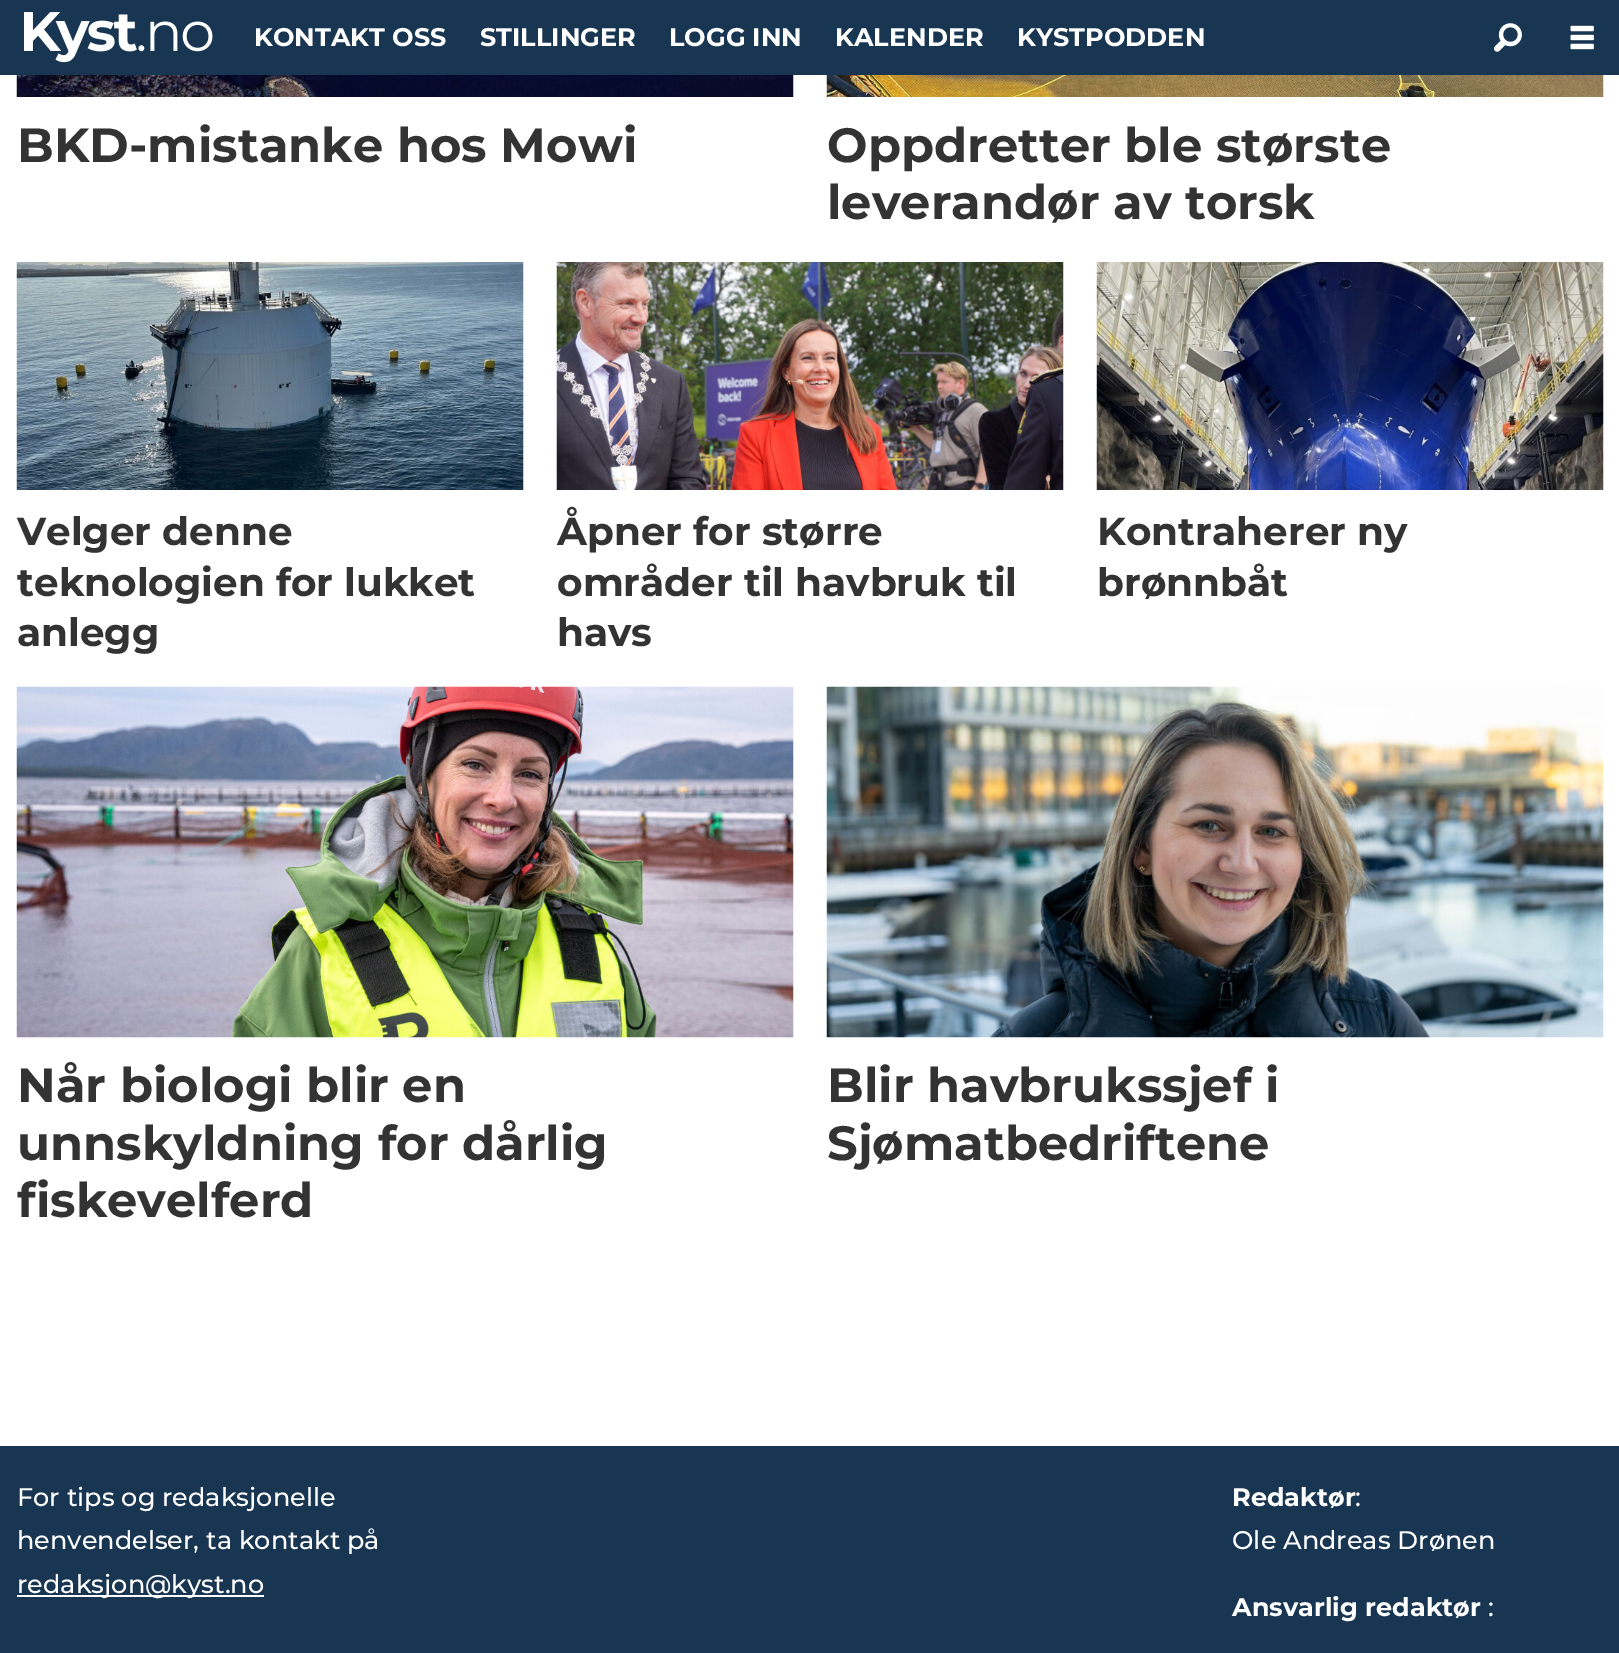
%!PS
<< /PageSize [1619 1653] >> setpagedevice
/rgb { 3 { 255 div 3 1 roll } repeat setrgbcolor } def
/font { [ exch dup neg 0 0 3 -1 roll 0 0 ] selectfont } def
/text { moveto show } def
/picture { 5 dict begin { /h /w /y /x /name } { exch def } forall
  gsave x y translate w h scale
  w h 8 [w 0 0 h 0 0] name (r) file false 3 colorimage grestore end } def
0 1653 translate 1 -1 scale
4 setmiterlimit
255 255 255 rgb
0 0 1619 1653 rectfill
24 53 81 rgb
0 0 1619 75 rectfill
(img_01.rgb) 24 12 189 51 picture
(img_02.rgb) 1494 23 28 29 picture
(img_03.rgb) 1570 25 24 25 picture
(img_04.rgb) 16 75 778 22 picture
(img_05.rgb) 826 75 778 22 picture
(img_06.rgb) 16 262 508 228 picture
(img_07.rgb) 556 262 508 228 picture
(img_08.rgb) 1096 262 508 228 picture
(img_09.rgb) 16 686 778 352 picture
(img_10.rgb) 826 686 778 352 picture
0 1446 1619 207 rectfill
255 255 255 rgb
17 1595 247 2 rectfill
/Montserrat-Bold 25.5 font
(KONTAKT OSS) 254 46 text
(STILLINGER) 480 46 text
(LOGG INN) 669 46 text
(KALENDER) 835 46 text
(KYSTPODDEN) 1017 46 text
/Montserrat-Bold 48 font
51 51 51 rgb
(BKD-mistanke hos Mowi) 17 162 text
(Oppdretter ble største) 827 162 text
(leverandør av torsk) 827 219 text
/Montserrat-Bold 39 font
(Velger denne) 17 545 text
(teknologien for lukket) 17 596 text
(anlegg) 17 646 text
(Åpner for større) 557 545 text
(områder til havbruk til) 557 596 text
(havs) 557 646 text
(Kontraherer ny) 1097 545 text
(brønnbåt) 1097 596 text
/Montserrat-Bold 48 font
(Når biologi blir en) 17 1102 text
(unnskyldning for dårlig) 17 1160 text
(fiskevelferd) 17 1217 text
(Blir havbrukssjef i) 827 1102 text
(Sjømatbedriftene) 827 1160 text
/Montserrat-Medium 25.5 font
255 255 255 rgb
(For tips og redaksjonelle) 17 1506 text
(henvendelser, ta kontakt på) 17 1549 text
(redaksjon@kyst.no) 17 1593 text
/Montserrat-Bold 25.5 font
(Redaktør) 1232 1506 text
/Montserrat-Medium 25.5 font
(:) 1355 1506 text
(Ole Andreas Drønen) 1232 1549 text
/Montserrat-Bold 25.5 font
(Ansvarlig redaktør) 1232 1616 text
/Montserrat-Medium 25.5 font
(:) 1488 1616 text
showpage
